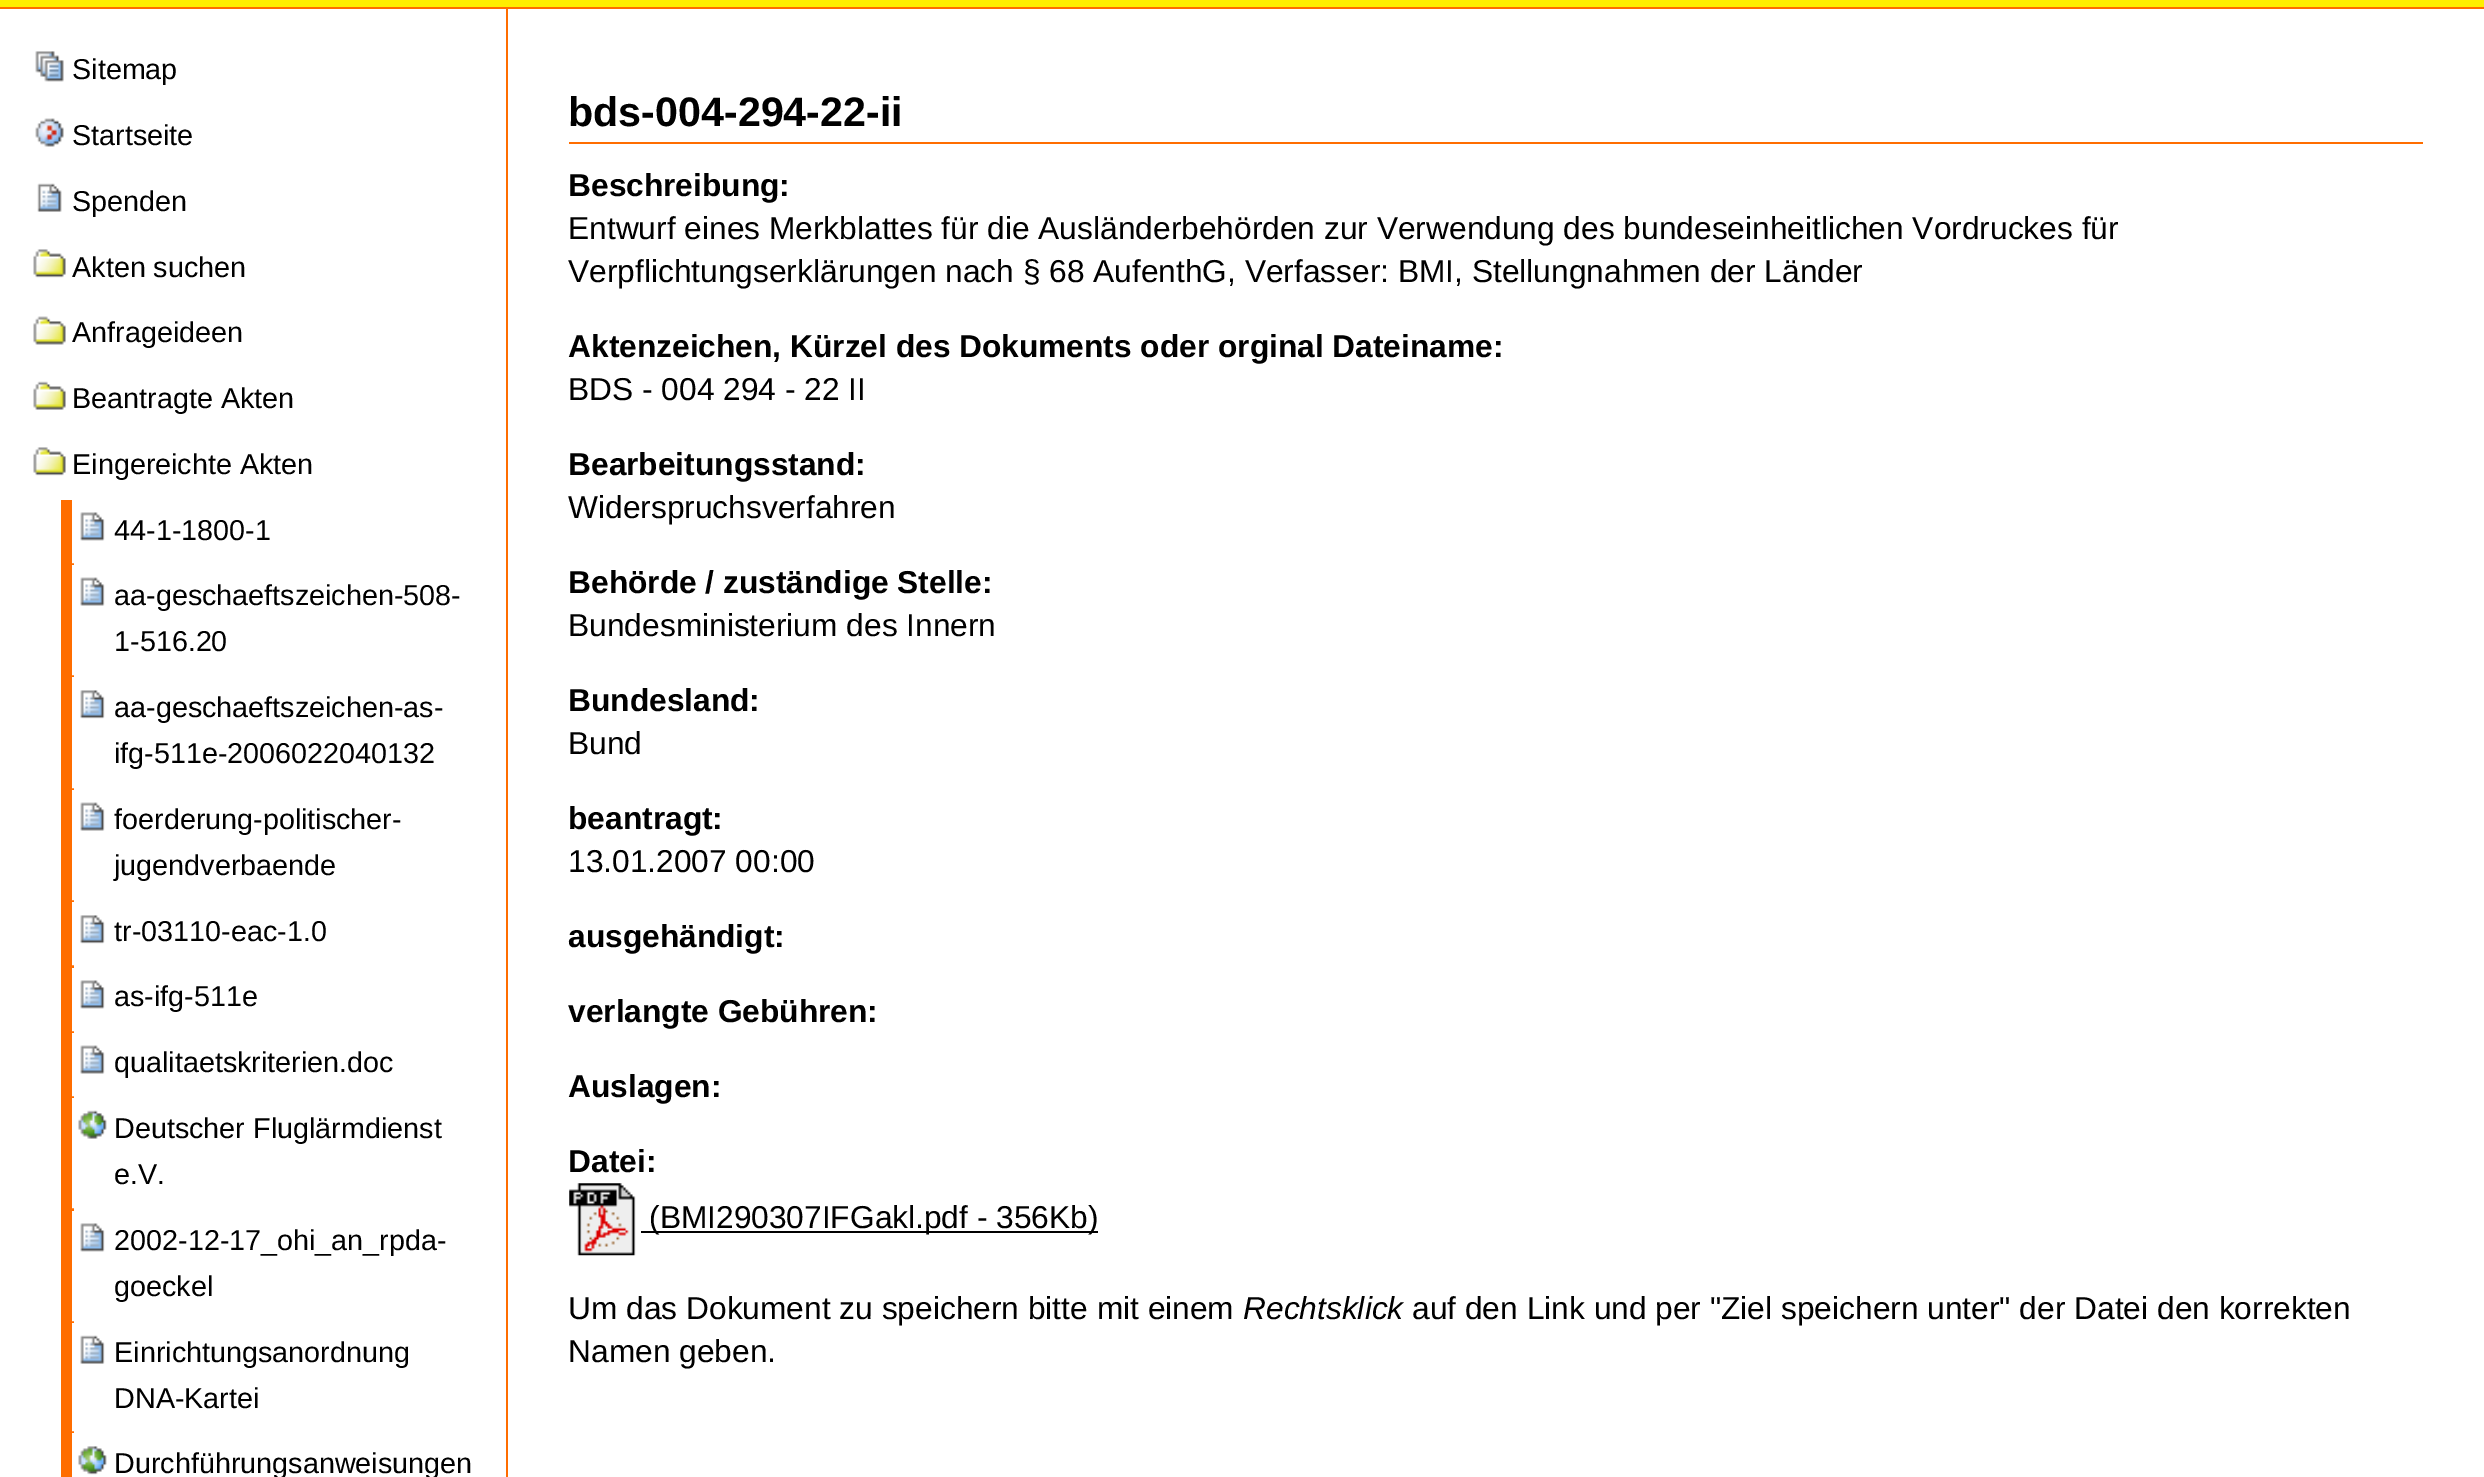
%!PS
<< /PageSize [2484 1477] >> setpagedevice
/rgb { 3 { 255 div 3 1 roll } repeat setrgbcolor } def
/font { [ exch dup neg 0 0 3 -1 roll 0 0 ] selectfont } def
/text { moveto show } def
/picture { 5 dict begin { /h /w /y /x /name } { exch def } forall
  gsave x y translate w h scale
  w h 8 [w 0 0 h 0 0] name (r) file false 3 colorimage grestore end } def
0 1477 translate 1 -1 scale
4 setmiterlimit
255 255 255 rgb
0 0 2484 1477 rectfill
255 238 0 rgb
0 0 2484 7 rectfill
255 109 0 rgb
0 7 2484 2 rectfill
506 7 2 1470 rectfill
(img_01.rgb) 35 51 29 31 picture
(img_02.rgb) 35 118 29 29 picture
(img_03.rgb) 37 183 25 29 picture
(img_04.rgb) 33 249 33 29 picture
(img_05.rgb) 33 316 33 29 picture
(img_06.rgb) 33 381 33 29 picture
(img_04.rgb) 33 447 33 29 picture
61 500 13 977 rectfill
(img_07.rgb) 80 512 25 29 picture
255 255 255 rgb
2 setlinewidth
73 501 401 61 rectstroke
(img_08.rgb) 80 577 25 29 picture
73 566 401 108 rectstroke
(img_09.rgb) 80 690 25 29 picture
73 678 401 109 rectstroke
(img_10.rgb) 80 802 25 29 picture
73 791 401 108 rectstroke
(img_09.rgb) 80 915 25 29 picture
73 903 401 61 rectstroke
(img_07.rgb) 80 980 25 29 picture
73 969 401 61 rectstroke
(img_08.rgb) 80 1045 25 29 picture
73 1034 401 61 rectstroke
(img_11.rgb) 78 1110 29 29 picture
73 1099 401 108 rectstroke
(img_12.rgb) 80 1223 25 29 picture
73 1212 401 108 rectstroke
(img_13.rgb) 80 1335 25 29 picture
73 1324 401 106 rectstroke
(img_14.rgb) 78 1446 29 29 picture
73 1434 401 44 rectstroke
255 109 0 rgb
569 142 1854 2 rectfill
(img_15.rgb) 569 1183 67 73 picture
0 0 0 rgb
641 1231 457 2 rectfill
/LiberationSans-Regular 28.75 font
(Sitemap) 72 79 text
(Startseite) 72 145 text
(Spenden) 72 211 text
(Akten suchen) 72 277 text
(Anfrageideen) 72 342 text
(Beantragte Akten) 72 408 text
(Eingereichte Akten) 72 474 text
(44-1-1800-1) 114 540 text
(aa-geschaeftszeichen-508-) 114 605 text
(1-516.20) 114 651 text
(aa-geschaeftszeichen-as-) 114 717 text
(ifg-511e-2006022040132) 114 763 text
(foerderung-politischer-) 114 829 text
(jugendverbaende) 114 875 text
(tr-03110-eac-1.0) 114 941 text
(as-ifg-511e) 114 1006 text
(qualitaetskriterien.doc) 114 1072 text
(Deutscher Fluglärmdienst) 114 1138 text
(e.V.) 114 1184 text
(2002-12-17_ohi_an_rpda-) 114 1250 text
(goeckel) 114 1296 text
(Einrichtungsanordnung) 114 1362 text
(DNA-Kartei) 114 1408 text
(Durchführungsanweisungen) 114 1473 text
/LiberationSans-Bold 41.25 font
(bds-004-294-22-ii) 568 126 text
/LiberationSans-Bold 31.7 font
(Beschreibung:) 568 196 text
/LiberationSans-Regular 31.7 font
(Entwurf eines Merkblattes für die Ausländerbehörden zur Verwendung des bundeseinheitlichen Vordruckes für) 568 239 text
(Verpflichtungserklärungen nach § 68 AufenthG, Verfasser: BMI, Stellungnahmen der Länder) 568 282 text
/LiberationSans-Bold 31.7 font
(Aktenzeichen, Kürzel des Dokuments oder orginal Dateiname:) 568 357 text
/LiberationSans-Regular 31.7 font
(BDS - 004 294 - 22 II) 568 400 text
/LiberationSans-Bold 31.7 font
(Bearbeitungsstand:) 568 475 text
/LiberationSans-Regular 31.7 font
(Widerspruchsverfahren) 568 518 text
/LiberationSans-Bold 31.7 font
(Behörde / zuständige Stelle:) 568 593 text
/LiberationSans-Regular 31.7 font
(Bundesministerium des Innern) 568 636 text
/LiberationSans-Bold 31.7 font
(Bundesland:) 568 711 text
/LiberationSans-Regular 31.7 font
(Bund) 568 754 text
/LiberationSans-Bold 31.7 font
(beantragt:) 568 829 text
/LiberationSans-Regular 31.7 font
(13.01.2007 00:00) 568 872 text
/LiberationSans-Bold 31.7 font
(ausgehändigt:) 568 947 text
(verlangte Gebühren:) 568 1022 text
(Auslagen:) 568 1097 text
(Datei:) 568 1172 text
/LiberationSans-Regular 31.7 font
(\(BMI290307IFGakl.pdf - 356Kb\)) 649 1228 text
(Um das Dokument zu speichern bitte mit einem) 568 1319 text
/LiberationSans-Italic 31.7 font
(Rechtsklick) 1243 1319 text
/LiberationSans-Regular 31.7 font
(auf den Link und per "Ziel speichern unter" der Datei den korrekten) 1412 1319 text
(Namen geben.) 568 1362 text
showpage
